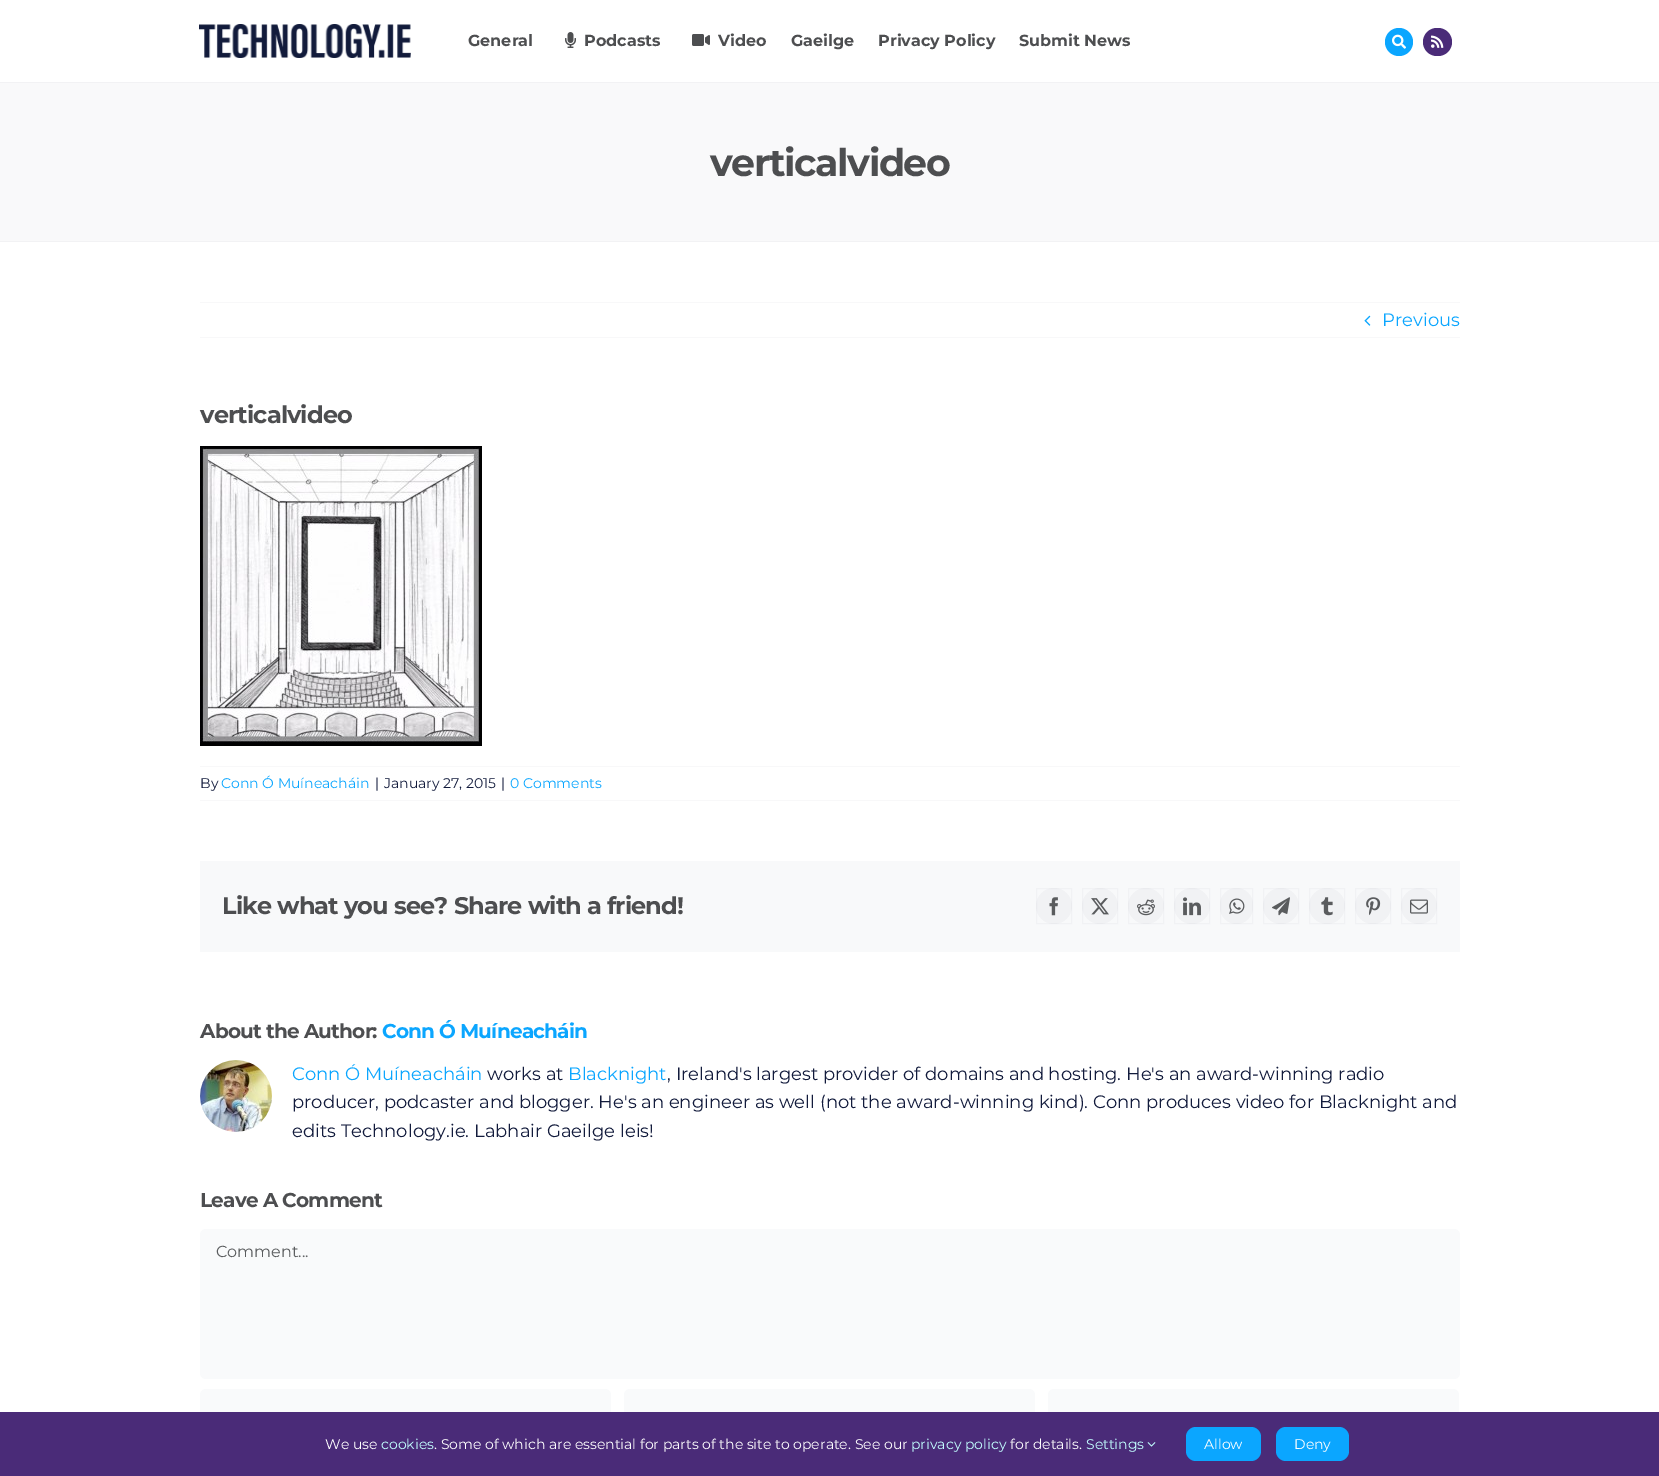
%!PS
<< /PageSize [1659 1476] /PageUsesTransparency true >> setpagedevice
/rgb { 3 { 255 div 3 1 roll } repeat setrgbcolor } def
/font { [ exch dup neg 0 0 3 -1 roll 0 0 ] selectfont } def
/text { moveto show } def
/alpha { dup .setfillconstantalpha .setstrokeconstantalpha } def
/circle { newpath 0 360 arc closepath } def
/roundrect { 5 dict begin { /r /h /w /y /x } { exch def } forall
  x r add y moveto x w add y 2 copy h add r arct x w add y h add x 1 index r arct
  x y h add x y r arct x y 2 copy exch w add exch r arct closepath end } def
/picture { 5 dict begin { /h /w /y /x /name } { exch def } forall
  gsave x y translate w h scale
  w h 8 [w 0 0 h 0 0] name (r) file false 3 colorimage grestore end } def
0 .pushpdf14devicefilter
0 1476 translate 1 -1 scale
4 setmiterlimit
255 255 255 rgb
0 0 1659 1476 rectfill
(img_01.rgb) 199 24 212 34 picture
(img_02.rgb) 565 32 11 16 picture
(img_03.rgb) 692 34 18 12 picture
11 166 255 rgb
1399 42 14 circle fill
(img_04.rgb) 1392 34 14 15 picture
74 43 120 rgb
1423 28 29 28 14 roundrect fill
(img_05.rgb) 1431 35 13 13 picture
249 249 250 rgb
0 83 1659 158 rectfill
242 242 244 rgb
0 82 1659 1 rectfill
0 241 1659 1 rectfill
248 248 249 rgb
200 302 1260 1 rectfill
200 337 1260 1 rectfill
(img_06.rgb) 1364 315 7 11 picture
(img_07.rgb) 200 446 282 300 picture
200 766 1260 1 rectfill
200 800 1260 1 rectfill
248 249 250 rgb
200 861 1260 91 rectfill
241 242 244 rgb
1054 906 18 circle fill
0.03 alpha
18 27 60 rgb
1036.5 888.5 35 35 rectstroke
1 alpha
(img_08.rgb) 1049 897 9 19 picture
241 242 244 rgb
1100 906 18 circle fill
0.03 alpha
18 27 60 rgb
1082.5 888.5 35 35 rectstroke
1 alpha
(img_09.rgb) 1091 898 18 17 picture
241 242 244 rgb
1146 906 18 circle fill
0.03 alpha
18 27 60 rgb
1128.5 888.5 35 35 rectstroke
1 alpha
(img_10.rgb) 1137 899 18 17 picture
241 242 244 rgb
1192 906 18 circle fill
0.03 alpha
18 27 60 rgb
1174.5 888.5 35 35 rectstroke
1 alpha
(img_11.rgb) 1183 897 18 19 picture
241 242 244 rgb
1220 888 33 36 16.5 roundrect fill
0.03 alpha
18 27 60 rgb
1220.5 888.5 32 35 rectstroke
1 alpha
(img_12.rgb) 1229 898 16 16 picture
241 242 244 rgb
1281 906 18 circle fill
0.03 alpha
18 27 60 rgb
1263.5 888.5 35 35 rectstroke
1 alpha
(img_13.rgb) 1272 897 18 19 picture
241 242 244 rgb
1327 906 18 circle fill
0.03 alpha
18 27 60 rgb
1309.5 888.5 35 35 rectstroke
1 alpha
(img_14.rgb) 1321 897 12 19 picture
241 242 244 rgb
1373 906 18 circle fill
0.03 alpha
18 27 60 rgb
1355.5 888.5 35 35 rectstroke
1 alpha
(img_15.rgb) 1366 897 15 19 picture
241 242 244 rgb
1419 906 18 circle fill
0.03 alpha
18 27 60 rgb
1401.5 888.5 35 35 rectstroke
1 alpha
(img_16.rgb) 1410 899 18 15 picture
(img_17.rgb) 200 1060 72 72 picture
249 250 251 rgb
200 1229 1260 150 6 roundrect fill
200 1389 411 48 6 roundrect fill
624 1389 411 48 6 roundrect fill
1048 1389 411 48 6 roundrect fill
74 43 120 rgb
0 1412 1659 64 rectfill
(img_18.rgb) 1147 1442 9 5 picture
11 166 255 rgb
1186 1427 75 34 10 roundrect fill
1276 1427 73 34 10 roundrect fill
/Montserrat-Bold 16 font
77 78 80 rgb
(General) 468 46 text
(Podcasts) 584 46 text
(Video) 718 46 text
(Gaeilge) 791 46 text
(Privacy Policy) 878 46 text
(Submit News) 1019 46 text
/Montserrat-Bold 38 font
710 176 moveto -1.4 0 (verticalvideo) ashow
/Montserrat-Regular 18 font
11 166 255 rgb
(Previous) 1382 326 text
/Montserrat-Bold 24 font
77 78 80 rgb
200 423 moveto -0.85 0 (verticalvideo) ashow
/Montserrat-Regular 14 font
18 27 60 rgb
(By) 200 788 text
11 166 255 rgb
(Conn Ó Muíneacháin) 221 788 text
18 27 60 rgb
(|) 375 788 text
(January 27, 2015) 384 788 text
(|) 501 788 text
11 166 255 rgb
(0 Comments) 510 788 text
/Montserrat-Bold 24 font
77 78 80 rgb
222 914 moveto -0.85 0 (Like what you see? Share with a friend!) ashow
/Montserrat-Bold 20 font
200 1038 moveto -0.75 0 (About the Author:) ashow
11 166 255 rgb
382 1038 moveto -0.75 0 (Conn Ó Muíneacháin) ashow
/Montserrat-Regular 18 font
(Conn Ó Muíneacháin) 292 1080 text
18 27 60 rgb
(works at) 487 1080 text
11 166 255 rgb
(Blacknight) 568 1080 text
18 27 60 rgb
(, Ireland's largest provider of domains and hosting. He's an award-winning radio) 667 1080 text
(producer, podcaster and blogger. He's an engineer as well \(not the award-winning kind\). Conn produces video for Blacknight and) 292 1108 text
(edits Technology.ie. Labhair Gaeilge leis!) 292 1137 text
/Montserrat-Bold 20 font
77 78 80 rgb
200 1207 moveto -0.75 0 (Leave A Comment) ashow
/Montserrat-Regular 16 font
90 92 94 rgb
(Comment...) 216 1257 text
/Montserrat-Regular 14 font
255 255 255 rgb
(We use) 325 1449 text
194 255 255 rgb
(cookies) 381 1449 text
255 255 255 rgb
(. Some of which are essential for parts of the site to operate. See our) 434 1449 text
194 255 255 rgb
(privacy policy) 911 1449 text
255 255 255 rgb
(for details.) 1010 1449 text
194 255 255 rgb
(Settings) 1086 1449 text
255 255 255 rgb
(Allow) 1204 1449 text
(Deny) 1294 1449 text
.poppdf14devicefilter showpage
